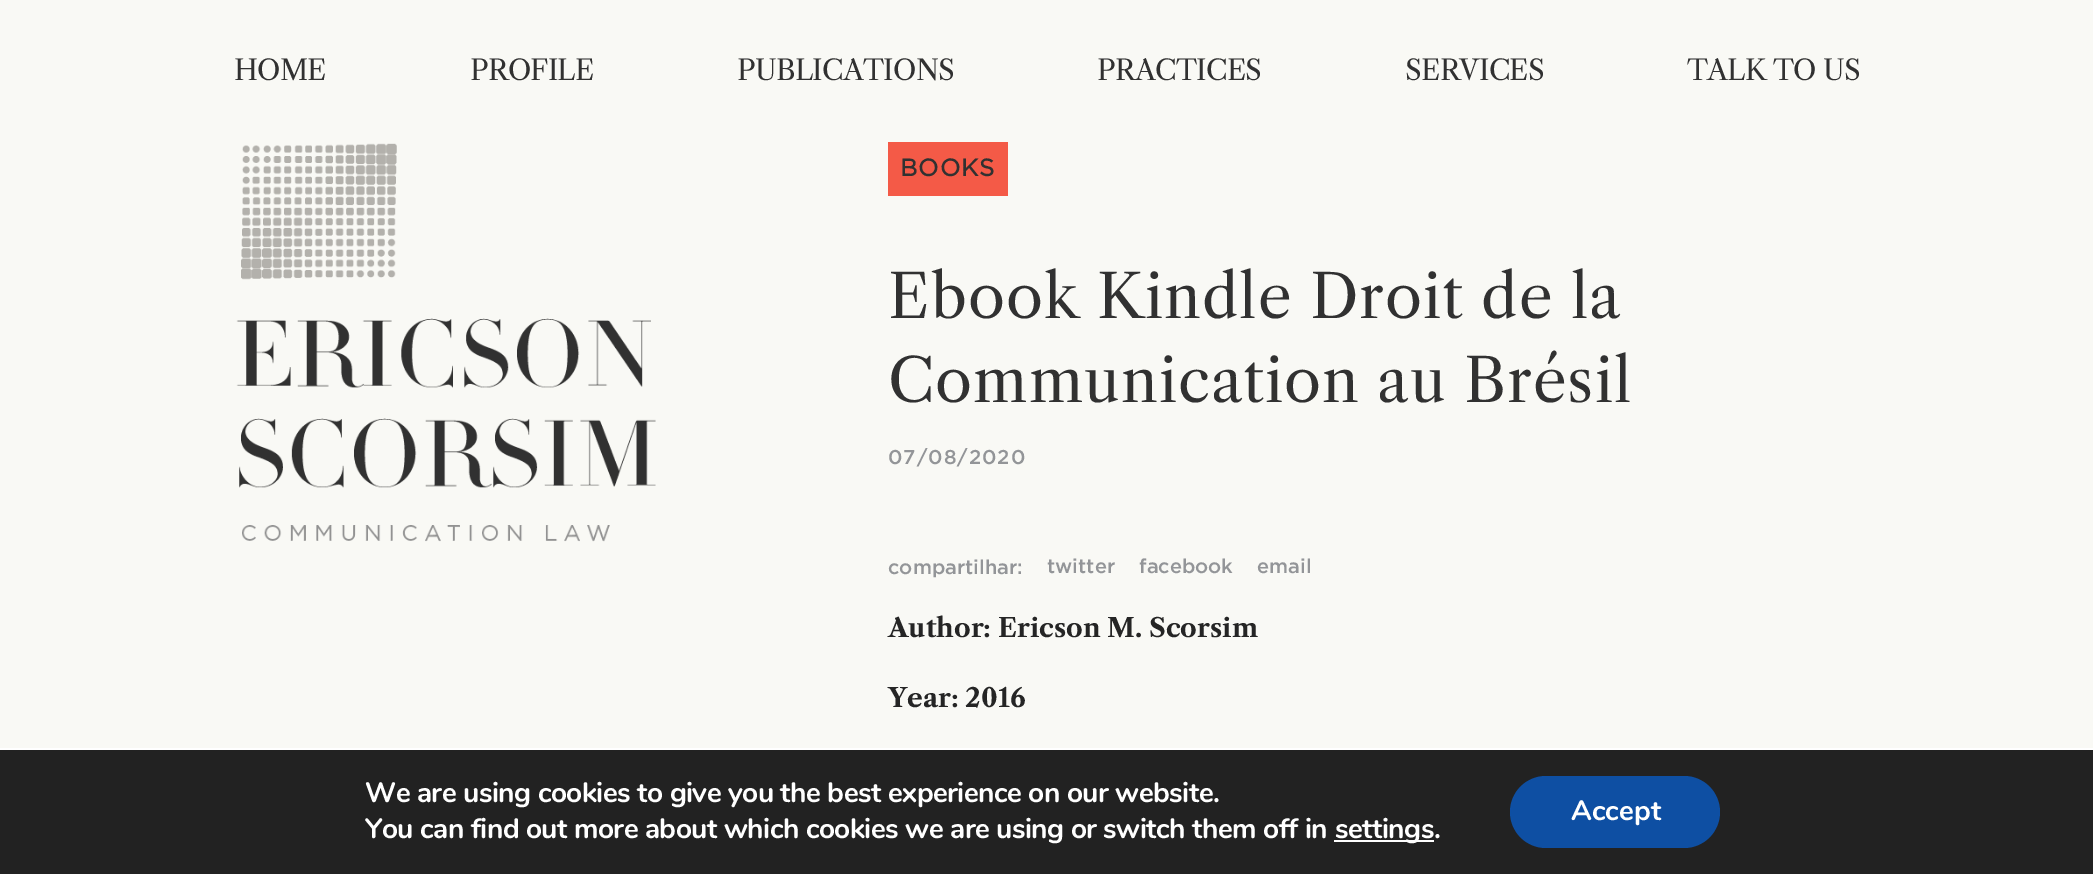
%!PS
<< /PageSize [2093 874] >> setpagedevice
/rgb { 3 { 255 div 3 1 roll } repeat setrgbcolor } def
/font { [ exch dup neg 0 0 3 -1 roll 0 0 ] selectfont } def
/text { moveto show } def
/roundrect { 5 dict begin { /r /h /w /y /x } { exch def } forall
  x r add y moveto x w add y 2 copy h add r arct x w add y h add x 1 index r arct
  x y h add x y r arct x y 2 copy exch w add exch r arct closepath end } def
/picture { 5 dict begin { /h /w /y /x /name } { exch def } forall
  gsave x y translate w h scale
  w h 8 [w 0 0 h 0 0] name (r) file false 3 colorimage grestore end } def
0 874 translate 1 -1 scale
4 setmiterlimit
249 249 245 rgb
0 0 2093 874 rectfill
(img_01.rgb) 236 143 420 399 picture
244 90 71 rgb
888 142 120 54 rectfill
34 34 34 rgb
0 750 2093 124 rectfill
255 255 255 rgb
0 748 2093 2 rectfill
1334 840 100 2 rectfill
14 79 163 rgb
1510 776 210 72 36 roundrect fill
/LibreCaslonText-Regular 28 font
49 49 49 rgb
234 80 moveto -0.75 0 (HOME) ashow
470 80 moveto -0.75 0 (PROFILE) ashow
737 80 moveto -0.75 0 (PUBLICATIONS) ashow
1097 80 moveto -0.75 0 (PRACTICES) ashow
1405 80 moveto -0.75 0 (SERVICES) ashow
1687 80 moveto -0.75 0 (TALK TO US) ashow
/Gotham-Bold 24 font
900 176 moveto 1 0 (BOOKS) ashow
/LibreCaslonText-Regular 60 font
888 318 moveto 1 0 (Ebook Kindle Droit de la) ashow
888 402 moveto 1 0 (Communication au Brésil) ashow
/Gotham-Medium 20 font
147 149 152 rgb
888 464 moveto 1 0 (07/08/2020) ashow
(compartilhar:) 888 574 text
(twitter) 1047 573 text
(facebook) 1139 573 text
(email) 1257 573 text
/LibreCaslonText-Bold 26 font
37 37 37 rgb
(Author: Ericson M. Scorsim) 888 637 text
(Year: 2016) 888 707 text
/Nunito-Bold 28 font
255 255 255 rgb
365 802 moveto -0.55 0 (We are using cookies to give you the best experience on our website.) ashow
365 838 moveto -0.55 0 (You can find out more about which cookies we are using or switch them off in) ashow
1335 838 moveto -0.55 0 (settings.) ashow
(Accept) 1571 820 text
showpage
